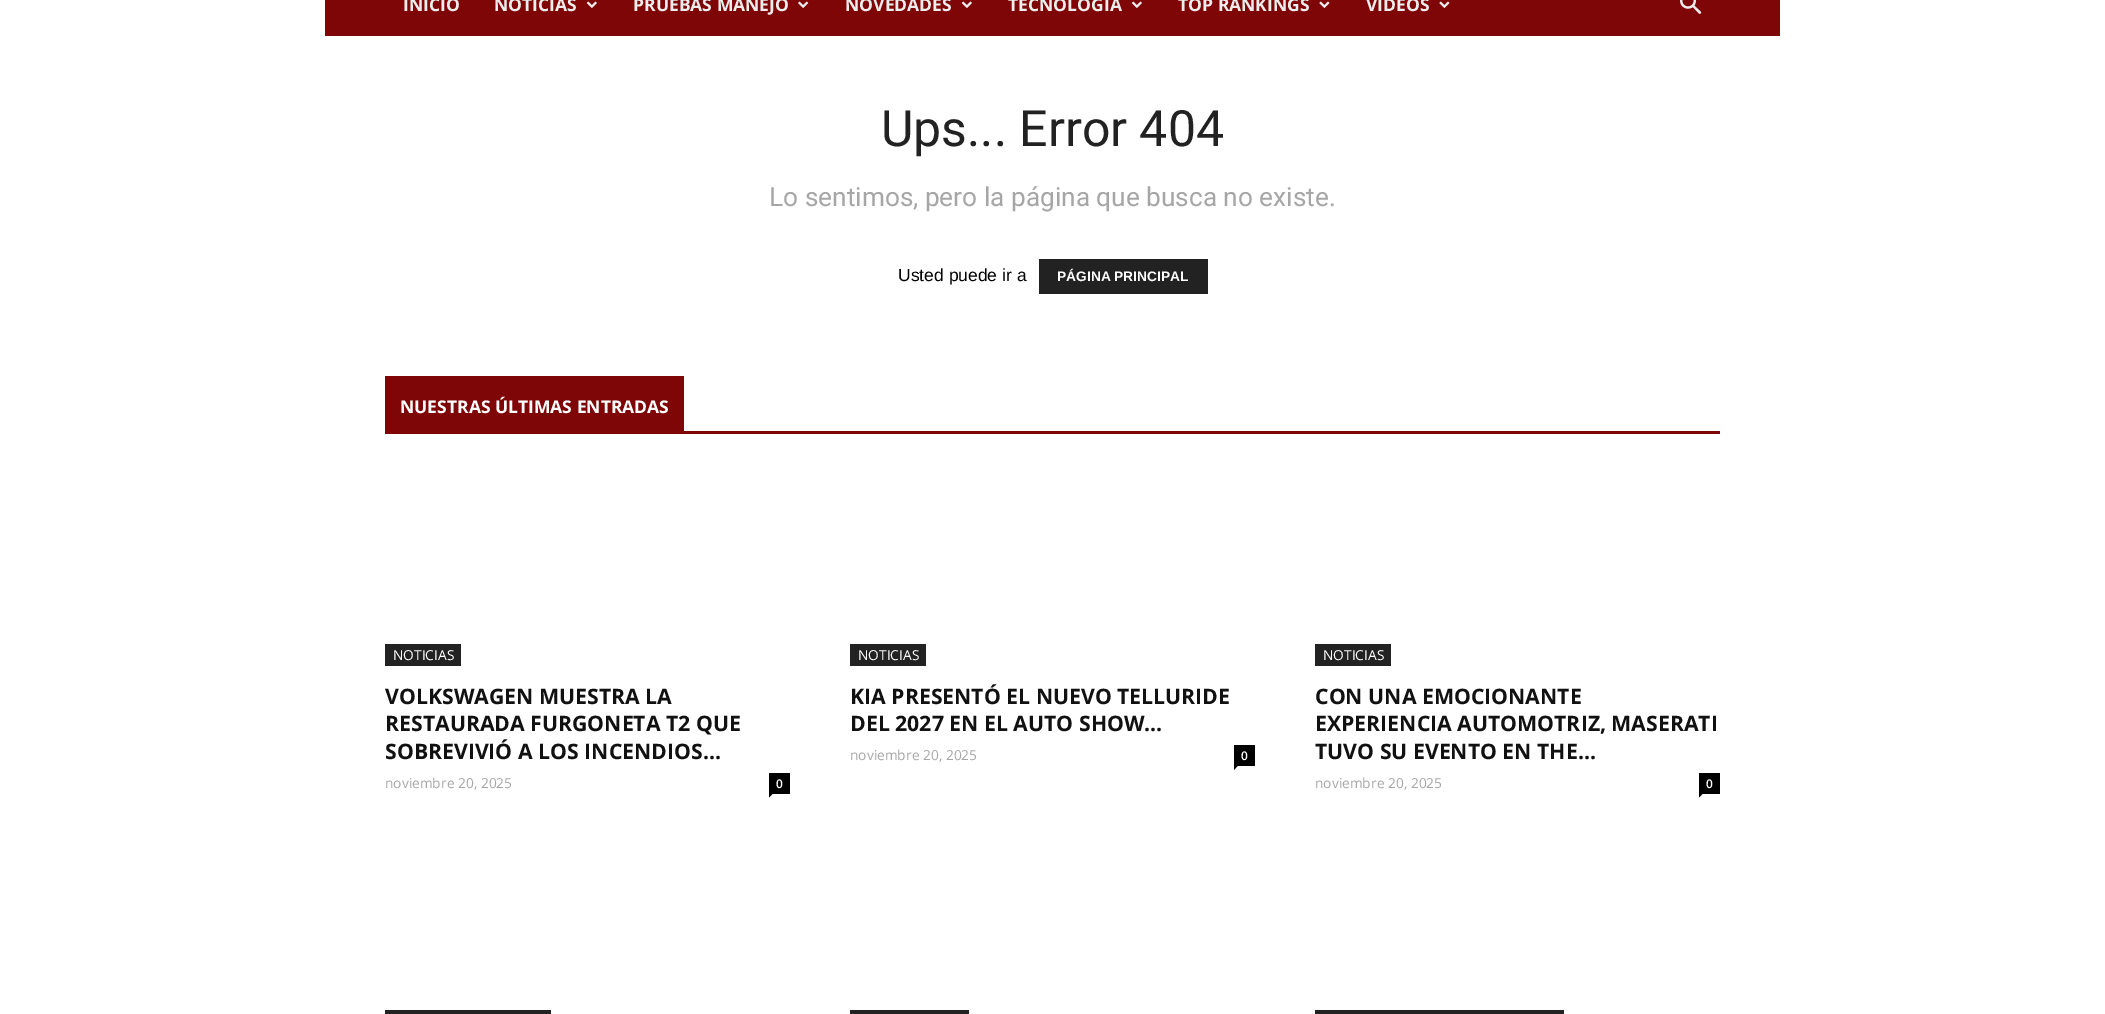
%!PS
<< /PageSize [2105 1014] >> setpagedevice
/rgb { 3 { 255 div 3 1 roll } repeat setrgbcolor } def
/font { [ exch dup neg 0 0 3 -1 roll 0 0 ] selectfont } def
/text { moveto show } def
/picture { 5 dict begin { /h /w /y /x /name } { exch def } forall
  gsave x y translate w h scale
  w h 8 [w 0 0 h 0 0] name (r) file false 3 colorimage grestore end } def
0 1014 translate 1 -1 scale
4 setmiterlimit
255 255 255 rgb
0 0 2105 1014 rectfill
127 6 6 rgb
325 0 1455 36 rectfill
(img_01.rgb) 586 1 11 7 picture
(img_02.rgb) 798 1 11 7 picture
(img_01.rgb) 961 1 11 7 picture
(img_01.rgb) 1131 1 11 7 picture
(img_03.rgb) 1319 1 11 7 picture
(img_03.rgb) 1439 1 11 7 picture
(img_04.rgb) 1680 0 22 14 picture
34 34 34 rgb
1039 259 169 35 rectfill
127 6 6 rgb
385 431 1335 3 rectfill
385 376 299 55 rectfill
34 34 34 rgb
385 644 76 22 rectfill
0 0 0 rgb
769 773 21 21 rectfill
769 794 moveto 3.5 0 rlineto -3.5 3.5 rlineto closepath fill
34 34 34 rgb
850 644 76 22 rectfill
0 0 0 rgb
1234 745 21 21 rectfill
1234 766 moveto 3.5 0 rlineto -3.5 4 rlineto closepath fill
34 34 34 rgb
1315 644 76 22 rectfill
0 0 0 rgb
1699 773 21 21 rectfill
1699 794 moveto 3.5 0 rlineto -3.5 3.5 rlineto closepath fill
34 34 34 rgb
385 1010 166 4 rectfill
850 1010 119 4 rectfill
1315 1010 249 4 rectfill
/OpenSans-Bold 17.5 font
237 237 237 rgb
(INICIO) 403 11 text
(NOTICIAS) 494 11 text
(PRUEBAS MANEJO) 633 11 text
(NOVEDADES) 845 11 text
(TECNOLOGIA) 1008 11 text
(TOP RANKINGS) 1178 11 text
(VIDEOS) 1366 11 text
/Roboto-Regular 50 font
34 34 34 rgb
(Ups... Error 404) 881 146 text
/Roboto-Regular 26.25 font
166 166 166 rgb
(Lo sentimos, pero la página que busca no existe.) 769 206 text
/LiberationSans-Regular 17.5 font
0 0 0 rgb
(Usted puede ir a) 898 281 text
/LiberationSans-Bold 13.75 font
255 255 255 rgb
(PÁGINA PRINCIPAL) 1057 281 text
/OpenSans-Bold 17.5 font
(NUESTRAS ÚLTIMAS ENTRADAS) 400 413 text
/OpenSans-Regular 13.75 font
(NOTICIAS) 393 660 text
/OpenSans-Bold 21.25 font
17 17 17 rgb
(VOLKSWAGEN MUESTRA LA) 385 704 text
(RESTAURADA FURGONETA T2 QUE) 385 731 text
(SOBREVIVIÓ A LOS INCENDIOS...) 385 759 text
/OpenSans-Regular 13.75 font
166 166 166 rgb
(noviembre 20, 2025) 385 788 text
/OpenSans-SemiBold 12 font
255 255 255 rgb
(0) 776 788 text
/OpenSans-Regular 13.75 font
(NOTICIAS) 858 660 text
/OpenSans-Bold 21.25 font
17 17 17 rgb
(KIA PRESENTÓ EL NUEVO TELLURIDE) 850 704 text
(DEL 2027 EN EL AUTO SHOW...) 850 731 text
/OpenSans-Regular 13.75 font
166 166 166 rgb
(noviembre 20, 2025) 850 760 text
/OpenSans-SemiBold 12 font
255 255 255 rgb
(0) 1241 760 text
/OpenSans-Regular 13.75 font
(NOTICIAS) 1323 660 text
/OpenSans-Bold 21.25 font
17 17 17 rgb
(CON UNA EMOCIONANTE) 1315 704 text
(EXPERIENCIA AUTOMOTRIZ, MASERATI) 1315 731 text
(TUVO SU EVENTO EN THE...) 1315 759 text
/OpenSans-Regular 13.75 font
166 166 166 rgb
(noviembre 20, 2025) 1315 788 text
/OpenSans-SemiBold 12 font
255 255 255 rgb
(0) 1706 788 text
showpage
